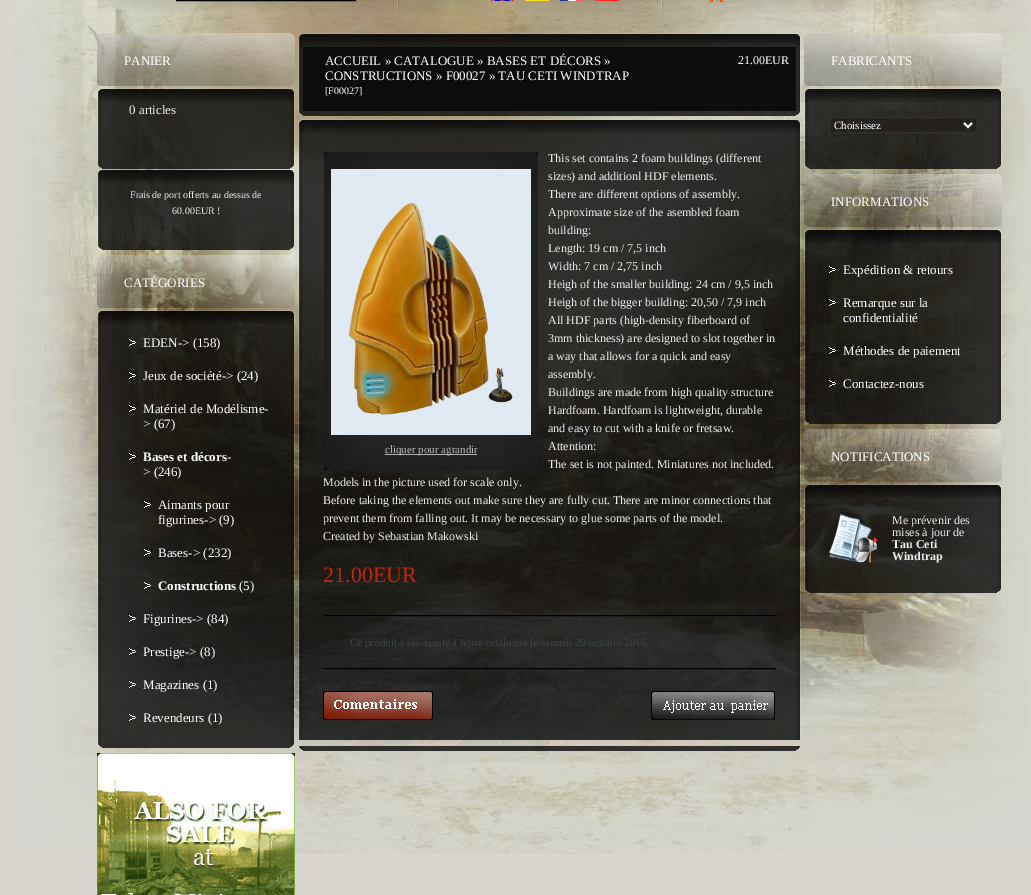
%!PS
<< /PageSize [1031 895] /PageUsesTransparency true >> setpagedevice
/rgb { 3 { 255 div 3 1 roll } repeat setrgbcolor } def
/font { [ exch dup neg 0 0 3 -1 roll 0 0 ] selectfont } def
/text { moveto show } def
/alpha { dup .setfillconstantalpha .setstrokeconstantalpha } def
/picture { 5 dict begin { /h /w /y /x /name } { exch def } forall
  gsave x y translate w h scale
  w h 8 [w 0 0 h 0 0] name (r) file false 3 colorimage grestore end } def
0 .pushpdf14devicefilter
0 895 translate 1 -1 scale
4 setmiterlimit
216 214 207 rgb
0 0 1031 895 rectfill
(img_01.rgb) 11 0 1020 854 picture
(img_02.rgb) 997 0 5 8 picture
(img_03.rgb) 97 0 5 13 picture
(img_04.rgb) 102 0 895 12 picture
0 0 0 rgb
176.5 -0.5 179 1 rectstroke
(img_05.rgb) 397 0 2 14 picture
(img_06.rgb) 490 0 24 1 picture
(img_07.rgb) 525 0 24 1 picture
(img_08.rgb) 560 0 24 1 picture
(img_09.rgb) 595 0 24 1 picture
(img_10.rgb) 661 0 2 14 picture
(img_11.rgb) 710 0 13 2 picture
(img_12.rgb) 97 33 5 5 picture
(img_13.rgb) 290 33 5 5 picture
(img_14.rgb) 102 33 188 5 picture
(img_15.rgb) 97 38 5 43 picture
(img_16.rgb) 290 38 5 43 picture
(img_17.rgb) 102 38 188 43 picture
(img_18.rgb) 97 81 5 5 picture
(img_19.rgb) 290 81 5 5 picture
(img_20.rgb) 102 81 188 5 picture
(img_21.rgb) 97 88 5 14 picture
(img_22.rgb) 290 88 5 14 picture
(img_23.rgb) 102 88 188 14 picture
(img_24.rgb) 97 102 5 62 picture
(img_25.rgb) 290 102 5 62 picture
0.82 alpha
12 12 12 rgb
102 102 188 62 rectfill
1 alpha
(img_26.rgb) 97 164 5 5 picture
(img_27.rgb) 290 164 5 5 picture
0.82 alpha
102 164 188 5 rectfill
1 alpha
(img_28.rgb) 97 169 5 14 picture
(img_29.rgb) 290 169 5 14 picture
(img_30.rgb) 102 169 188 14 picture
(img_31.rgb) 97 183 5 62 picture
(img_32.rgb) 290 183 5 62 picture
0.82 alpha
102 183 188 62 rectfill
1 alpha
(img_33.rgb) 97 245 5 5 picture
(img_34.rgb) 290 245 5 5 picture
0.82 alpha
102 245 188 5 rectfill
1 alpha
(img_35.rgb) 97 255 5 5 picture
(img_36.rgb) 290 255 5 5 picture
(img_37.rgb) 102 255 188 5 picture
(img_38.rgb) 97 260 5 43 picture
(img_39.rgb) 290 260 5 43 picture
(img_40.rgb) 102 260 188 43 picture
(img_41.rgb) 97 303 5 5 picture
(img_42.rgb) 290 303 5 5 picture
(img_43.rgb) 102 303 188 5 picture
(img_44.rgb) 97 310 5 14 picture
(img_45.rgb) 290 310 5 14 picture
(img_46.rgb) 102 310 188 14 picture
(img_47.rgb) 97 324 5 419 picture
(img_48.rgb) 290 324 5 419 picture
0.82 alpha
102 324 188 419 rectfill
1 alpha
(img_49.rgb) 129 339 7 7 picture
(img_50.rgb) 129 372 7 7 picture
(img_51.rgb) 129 405 7 7 picture
(img_52.rgb) 129 453 7 7 picture
(img_53.rgb) 144 501 7 7 picture
(img_54.rgb) 144 549 7 7 picture
(img_55.rgb) 144 582 7 7 picture
(img_56.rgb) 129 615 7 7 picture
(img_57.rgb) 129 648 7 7 picture
(img_58.rgb) 129 681 7 7 picture
(img_59.rgb) 129 714 7 7 picture
(img_60.rgb) 97 743 5 5 picture
(img_61.rgb) 290 743 5 5 picture
0.82 alpha
102 743 188 5 rectfill
1 alpha
(img_62.rgb) 97 753 198 142 picture
(img_63.rgb) 298 33 5 14 picture
(img_64.rgb) 796 33 5 14 picture
(img_65.rgb) 303 33 493 14 picture
(img_66.rgb) 298 47 5 64 picture
(img_67.rgb) 796 47 5 64 picture
11 12 13 rgb
303 47 493 64 rectfill
(img_68.rgb) 298 111 5 5 picture
(img_69.rgb) 796 111 5 5 picture
0.82 alpha
12 12 12 rgb
303 111 493 5 rectfill
1 alpha
(img_70.rgb) 298 119 5 14 picture
(img_71.rgb) 796 119 5 14 picture
(img_72.rgb) 303 119 493 14 picture
(img_73.rgb) 298 133 5 607 picture
(img_74.rgb) 796 133 5 607 picture
0.82 alpha
303 133 493 607 rectfill
1 alpha
(img_75.rgb) 393 152 76 17 picture
(img_76.rgb) 531 196 7 196 picture
(img_77.rgb) 393 435 110 35 picture
(img_78.rgb) 324 197 7 229 picture
(img_79.rgb) 324 152 69 45 picture
(img_80.rgb) 469 152 69 44 picture
(img_81.rgb) 324 426 69 44 picture
(img_82.rgb) 503 392 35 78 picture
(img_83.rgb) 331 169 200 266 picture
180 180 180 rgb
385 454 92 1 rectfill
(img_84.rgb) 323 615 453 2 picture
(img_84.rgb) 323 668 453 2 picture
(img_85.rgb) 323 691 110 29 picture
(img_86.rgb) 651 691 124 29 picture
(img_87.rgb) 298 746 5 5 picture
(img_88.rgb) 796 746 5 5 picture
0.82 alpha
12 12 12 rgb
303 746 493 5 rectfill
1 alpha
(img_89.rgb) 804 33 5 5 picture
(img_90.rgb) 997 33 5 5 picture
(img_91.rgb) 809 33 188 5 picture
(img_92.rgb) 804 38 5 43 picture
(img_93.rgb) 997 38 5 43 picture
(img_94.rgb) 809 38 188 43 picture
(img_95.rgb) 804 81 5 5 picture
(img_96.rgb) 997 81 5 5 picture
(img_97.rgb) 809 81 188 5 picture
(img_98.rgb) 804 88 5 14 picture
(img_99.rgb) 997 88 5 14 picture
(img_100.rgb) 809 88 188 14 picture
(img_101.rgb) 804 102 5 62 picture
(img_102.rgb) 997 102 5 62 picture
0.82 alpha
809 102 188 62 rectfill
1 alpha
37 33 31 rgb
829.5 117.5 moveto 147 0 rlineto 0 15 rlineto -147 0 rlineto closepath gsave fill grestore
52 48 46 rgb
stroke
255 255 255 rgb
2 setlinewidth
964 123 moveto 4 4 rlineto 4 -4 rlineto stroke
(img_103.rgb) 804 164 5 5 picture
(img_104.rgb) 997 164 5 5 picture
0.82 alpha
12 12 12 rgb
809 164 188 5 rectfill
1 alpha
(img_105.rgb) 804 174 5 5 picture
(img_106.rgb) 997 174 5 5 picture
(img_107.rgb) 809 174 188 5 picture
(img_108.rgb) 804 179 5 43 picture
(img_109.rgb) 997 179 5 43 picture
(img_110.rgb) 809 179 188 43 picture
(img_111.rgb) 804 222 5 5 picture
(img_112.rgb) 997 222 5 5 picture
(img_113.rgb) 809 222 188 5 picture
(img_114.rgb) 804 229 5 14 picture
(img_115.rgb) 997 229 5 14 picture
(img_116.rgb) 809 229 188 14 picture
(img_117.rgb) 804 243 5 176 picture
(img_118.rgb) 997 243 5 176 picture
0.82 alpha
809 243 188 176 rectfill
1 alpha
(img_119.rgb) 829 266 7 7 picture
(img_120.rgb) 829 299 7 7 picture
(img_121.rgb) 829 347 7 7 picture
(img_122.rgb) 829 380 7 7 picture
(img_123.rgb) 804 419 5 5 picture
(img_124.rgb) 997 419 5 5 picture
0.82 alpha
809 419 188 5 rectfill
1 alpha
(img_125.rgb) 804 429 5 5 picture
(img_126.rgb) 997 429 5 5 picture
(img_127.rgb) 809 429 188 5 picture
(img_128.rgb) 804 434 5 43 picture
(img_129.rgb) 997 434 5 43 picture
(img_130.rgb) 809 434 188 43 picture
(img_131.rgb) 804 477 5 5 picture
(img_132.rgb) 997 477 5 5 picture
(img_133.rgb) 809 477 188 5 picture
(img_134.rgb) 804 484 5 14 picture
(img_135.rgb) 997 484 5 14 picture
(img_136.rgb) 809 484 188 14 picture
(img_137.rgb) 804 498 5 90 picture
(img_138.rgb) 997 498 5 90 picture
0.82 alpha
809 498 188 90 rectfill
1 alpha
(img_139.rgb) 829 514 49 49 picture
(img_140.rgb) 804 588 5 5 picture
(img_141.rgb) 997 588 5 5 picture
0.82 alpha
809 588 188 5 rectfill
/LiberationSerif-Regular 13 font
1 alpha
255 255 255 rgb
(PANIER) 124 65 text
237 237 237 rgb
(0 articles) 129 114 text
/LiberationSerif-Regular 10 font
(Frais de port offerts au dessus de) 130 198 text
(60.00EUR !) 172 214 text
/LiberationSerif-Regular 13 font
255 255 255 rgb
(CATÉGORIES) 124 287 text
(EDEN-> \(158\)) 143 347 text
(Jeux de société-> \(24\)) 143 380 text
(Matériel de Modélisme-) 143 413 text
(> \(67\)) 143 428 text
/LiberationSerif-Bold 13 font
(Bases et décors) 143 461 text
/LiberationSerif-Regular 13 font
(-) 227 461 text
(> \(246\)) 143 476 text
(Aimants pour) 158 509 text
(figurines-> \(9\)) 158 524 text
(Bases-> \(232\)) 158 557 text
/LiberationSerif-Bold 13 font
(Constructions) 158 590 text
/LiberationSerif-Regular 13 font
(\(5\)) 239 590 text
(Figurines-> \(84\)) 143 623 text
(Prestige-> \(8\)) 143 656 text
(Magazines \(1\)) 143 689 text
(Revendeurs \(1\)) 143 722 text
(ACCUEIL » CATALOGUE » BASES ET DÉCORS ») 325 65 text
(CONSTRUCTIONS » F00027 » TAU CETI WINDTRAP) 325 80 text
/LiberationSerif-Regular 10 font
([F00027]) 325 94 text
/LiberationSerif-Regular 12 font
(21.00EUR) 738 64 text
237 237 237 rgb
(This set contains 2 foam buildings \(different) 548 162 text
(sizes\) and additionl HDF elements.) 548 180 text
(There are different options of assembly.) 548 198 text
(Approximate size of the asembled foam) 548 216 text
(building:) 548 234 text
(Length: 19 cm / 7,5 inch) 548 252 text
(Width: 7 cm / 2,75 inch) 548 270 text
(Heigh of the smaller building: 24 cm / 9,5 inch) 548 288 text
(Heigh of the bigger building: 20,50 / 7,9 inch) 548 306 text
(All HDF parts \(high-density fiberboard of) 548 324 text
(3mm thickness\) are designed to slot together in) 548 342 text
(a way that allows for a quick and easy) 548 360 text
(assembly.) 548 378 text
(Buildings are made from high quality structure) 548 396 text
(Hardfoam. Hardfoam is lightweight, durable) 548 414 text
(and easy to cut with a knife or fretsaw.) 548 432 text
(Attention:) 548 450 text
(The set is not painted. Miniatures not included.) 548 468 text
(Models in the picture used for scale only.) 323 486 text
(Before taking the elements out make sure they are fully cut. There are minor connections that) 323 504 text
(prevent them from falling out. It may be necessary to glue some parts of the model.) 323 522 text
(Created by Sebastian Makowski) 323 540 text
/LiberationSerif-Regular 22 font
197 38 0 rgb
(21.00EUR) 323 582 text
/LiberationSerif-Regular 11 font
180 180 180 rgb
(cliquer pour agrandir) 385 453 text
58 67 79 rgb
(Ce produit a été ajouté à notre catalogue le samedi 29 octobre 2016.) 350 646 text
/LiberationSerif-Regular 13 font
255 255 255 rgb
(FABRICANTS) 831 65 text
/LiberationSerif-Regular 11 font
(Choisissez) 834 129 text
/LiberationSerif-Regular 13 font
(INFORMATIONS) 831 206 text
(Expédition & retours) 843 274 text
(Remarque sur la) 843 307 text
(confidentialité) 843 322 text
(Méthodes de paiement) 843 355 text
(Contactez-nous) 843 388 text
(NOTIFICATIONS) 831 461 text
/LiberationSerif-Regular 12 font
237 237 237 rgb
(Me prévenir des) 892 524 text
(mises à jour de) 892 536 text
/LiberationSerif-Bold 12 font
(Tau Ceti) 892 548 text
(Windtrap) 892 560 text
.poppdf14devicefilter showpage
